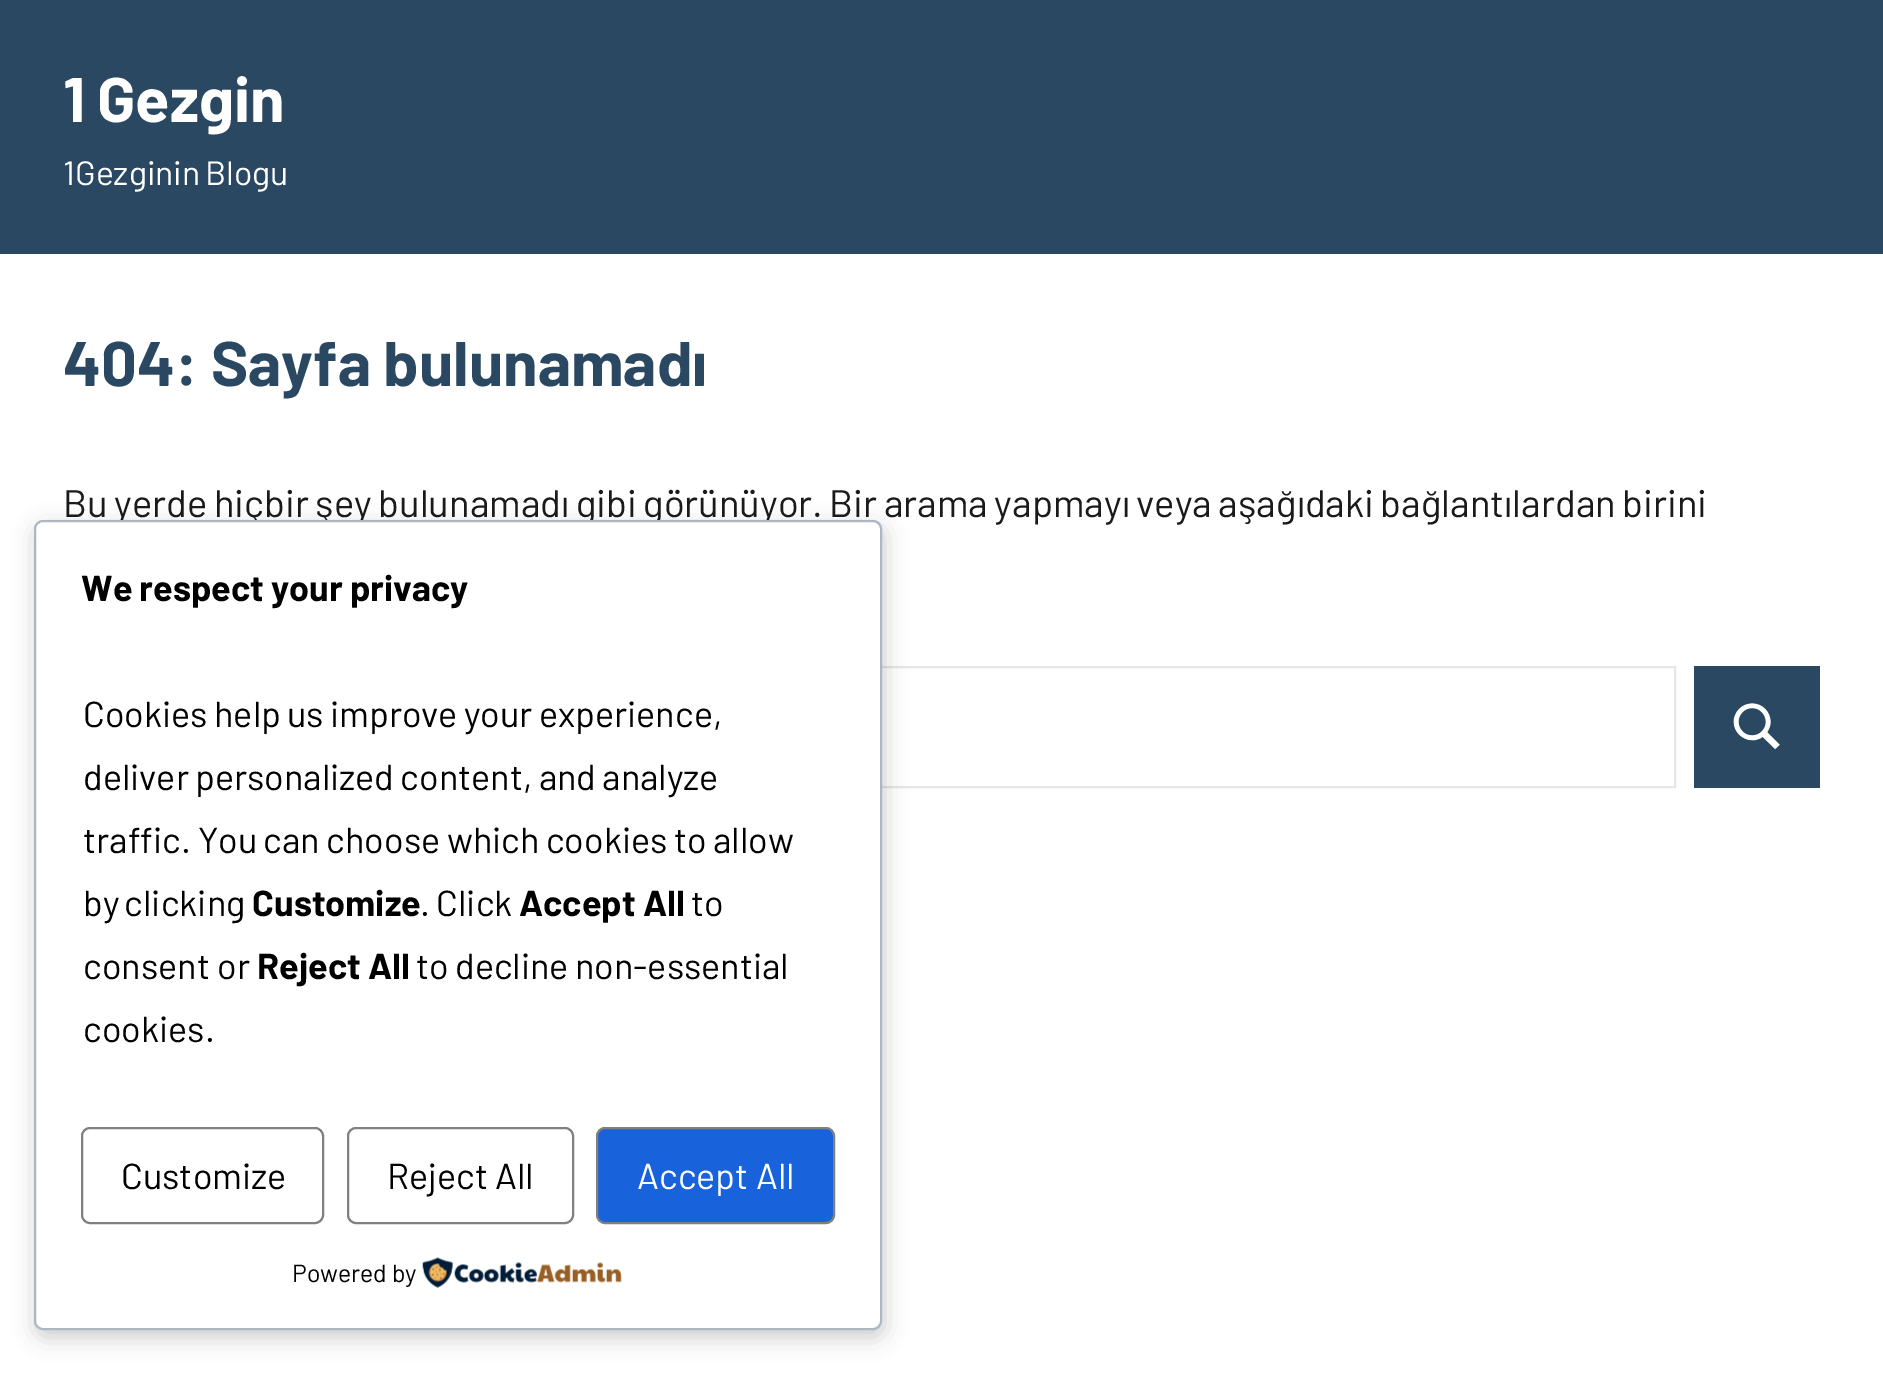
%!PS
<< /PageSize [1883 1374] /PageUsesTransparency true >> setpagedevice
/rgb { 3 { 255 div 3 1 roll } repeat setrgbcolor } def
/font { [ exch dup neg 0 0 3 -1 roll 0 0 ] selectfont } def
/text { moveto show } def
/alpha { dup .setfillconstantalpha .setstrokeconstantalpha } def
/roundrect { 5 dict begin { /r /h /w /y /x } { exch def } forall
  x r add y moveto x w add y 2 copy h add r arct x w add y h add x 1 index r arct
  x y h add x y r arct x y 2 copy exch w add exch r arct closepath end } def
/shadow { 12 dict begin { /a /b /q /h /w /y /x } { exch def } forall gsave /was 0 def
  9 -2 -9 { dup b mul 4 div /e exch def 1 sub .425 mul 2.718 exch exp 1 add a .99 .min exch div /now exch def
    1 1 now sub 1 was sub div sub alpha /was now def
    w h .min e 2 mul add 0 gt { x e sub y e sub w e 2 mul add h e 2 mul add
      q e add b .6 mul add w h .min 2 div e add .min 0 .max roundrect fill } if } for grestore end } def
/picture { 5 dict begin { /h /w /y /x /name } { exch def } forall
  gsave x y translate w h scale
  w h 8 [w 0 0 h 0 0] name (r) file false 3 colorimage grestore end } def
0 .pushpdf14devicefilter
0 1374 translate 1 -1 scale
4 setmiterlimit
42 72 97 rgb
0 0 1883 1374 rectfill
255 255 255 rgb
0 254 1883 1120 rectfill
230 230 230 rgb
2 setlinewidth
64 667 1611 120 rectstroke
42 72 97 rgb
1694 666 126 122 rectfill
(img_01.rgb) 1733 703 47 47 picture
0 0 0 rgb
36 527 848 810 9 11 0.2 shadow
/Barlow-Bold 63 font
255 255 255 rgb
63 122 moveto -1 0 32 (1 Gezgin) widthshow
/Barlow-Regular 33.75 font
63 185 moveto -2 0 32 (1Gezginin Blogu) widthshow
/Barlow-Bold 63 font
42 72 97 rgb
(404: Sayfa bulunamadı) 63 386 text
/Barlow-Regular 38.25 font
26 26 26 rgb
63 517 moveto -1.1 0 32 (Bu yerde hiçbir şey bulunamadı gibi görünüyor. Bir arama yapmayı veya aşağıdaki bağlantılardan birini) widthshow
255 255 255 rgb
35 521 846 808 8 roundrect gsave fill grestore
171 184 195 rgb
stroke
/Barlow-Bold 36 font
0 0 0 rgb
(We respect your privacy) 81 601 text
/Barlow-Regular 36 font
83 727 moveto -1 0 32 (Cookies help us improve your experience,) widthshow
83 790 moveto -1 0 32 (deliver personalized content, and analyze) widthshow
83 853 moveto -0.75 0 32 (traffic. You can choose which cookies to allow) widthshow
83 916 moveto -2 0 32 (by clicking) widthshow
/Barlow-Bold 36 font
(Customize) 252 916 text
/Barlow-Regular 36 font
420 916 moveto -1 0 32 (. Click) widthshow
/Barlow-Bold 36 font
(Accept All) 519 916 text
/Barlow-Regular 36 font
(to) 691 916 text
(consent or) 83 979 text
/Barlow-Bold 36 font
(Reject All) 257 979 text
/Barlow-Regular 36 font
416 979 moveto -1 0 32 (to decline non-essential) widthshow
(cookies.) 83 1042 text
128 128 128 rgb
82 1128 241 95 8 roundrect stroke
0 0 0 rgb
(Customize) 121 1189 text
128 128 128 rgb
348 1128 225 95 8 roundrect stroke
0 0 0 rgb
(Reject All) 387 1189 text
24 99 220 rgb
597 1128 237 95 8 roundrect gsave fill grestore
128 128 128 rgb
stroke
255 255 255 rgb
(Accept All) 637 1189 text
/Barlow-Regular 24.75 font
0 0 0 rgb
(Powered by) 292 1282 text
(img_02.rgb) 422 1257 200 31 picture
.poppdf14devicefilter showpage
